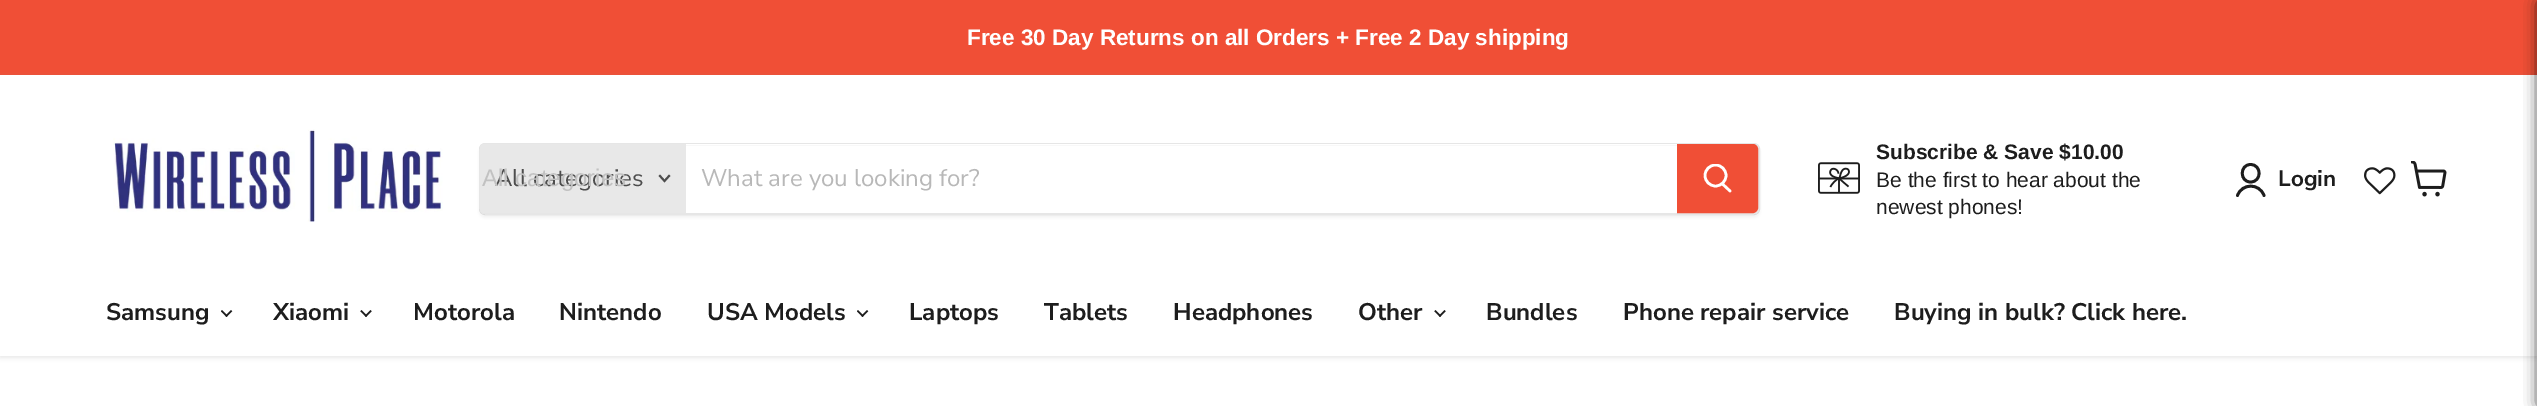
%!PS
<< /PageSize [2541 406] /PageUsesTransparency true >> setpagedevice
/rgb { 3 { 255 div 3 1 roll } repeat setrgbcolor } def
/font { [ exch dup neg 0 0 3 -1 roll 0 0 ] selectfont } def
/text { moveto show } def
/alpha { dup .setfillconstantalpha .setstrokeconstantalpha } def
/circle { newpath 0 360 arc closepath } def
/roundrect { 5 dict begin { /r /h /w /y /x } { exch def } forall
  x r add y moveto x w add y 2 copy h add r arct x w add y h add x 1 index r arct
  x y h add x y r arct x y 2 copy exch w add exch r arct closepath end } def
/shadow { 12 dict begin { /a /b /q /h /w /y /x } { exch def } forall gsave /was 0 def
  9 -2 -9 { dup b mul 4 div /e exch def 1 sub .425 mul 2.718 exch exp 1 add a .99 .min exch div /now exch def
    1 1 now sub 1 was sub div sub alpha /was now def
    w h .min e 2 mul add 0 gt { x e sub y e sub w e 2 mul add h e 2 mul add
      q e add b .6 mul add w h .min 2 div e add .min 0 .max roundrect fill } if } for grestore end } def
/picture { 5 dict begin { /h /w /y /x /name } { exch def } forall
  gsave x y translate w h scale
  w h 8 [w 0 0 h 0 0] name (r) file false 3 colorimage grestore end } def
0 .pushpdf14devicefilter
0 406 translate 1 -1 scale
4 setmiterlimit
255 255 255 rgb
0 0 2541 406 rectfill
240 79 54 rgb
0 0 2537 75 rectfill
128 128 128 rgb
0 77 2537 280 0 3 0.25 shadow
255 255 255 rgb
0 75 2537 281 rectfill
0 0 0 rgb
2540 3 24 401 0 7.5 1 shadow
255 255 255 rgb
2537 0 4 406 rectfill
(img_01.rgb) 113 129 330 93 picture
gsave
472 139 moveto 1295 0 rlineto 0 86 rlineto -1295 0 rlineto closepath 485 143 moveto 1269 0 rlineto 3.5 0 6 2.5 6 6 rcurveto 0 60 rlineto 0 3.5 -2.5 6 -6 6 rcurveto -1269 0 rlineto -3.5 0 -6 -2.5 -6 -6 rcurveto 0 -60 rlineto 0 -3.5 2.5 -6 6 -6 rcurveto closepath eoclip newpath
128 128 128 rgb
479 146 1281 72 6 2 0.11 shadow
grestore
0.2 alpha
128 128 128 rgb
2 setlinewidth
480 144 1279 70 5 roundrect stroke
1 alpha
232 232 232 rgb
485 144 moveto 201 0 rlineto 0 69 rlineto -201 0 rlineto -3 0 -5 -2 -5 -5 rcurveto 0 -59 rlineto 0 -3 2 -5 5 -5 rcurveto closepath fill
77 77 77 rgb
1.9 setlinewidth
2 setlinecap
664.5 181 moveto 4.5 -5 rlineto 664.5 181 moveto -4.5 -5 rlineto stroke
255 255 255 rgb
686 144 991 1 rectfill
240 79 54 rgb
1678 145 moveto 75 0 rlineto 2 0 4 2 4 4 rcurveto 0 59 rlineto 0 2 -2 4 -4 4 rcurveto -75 0 rlineto closepath gsave fill grestore
2 setlinewidth
0 setlinecap
stroke
255 255 255 rgb
2.6 setlinewidth
1 setlinecap
1730 191 moveto -7.5 -7 rlineto stroke
gsave
1703 164 30 31 rectclip
0 setlinecap
1715.5 175.5 10.5 circle stroke
grestore
(img_02.rgb) 1818 162 42 32 picture
29 29 29 rgb
2.8 setlinewidth
1 setlinejoin
2250.5 182 moveto 11.5 0 11.5 -17.5 0 -17.5 rcurveto -11 0 -11 17.5 0 17.5 rcurveto closepath 2264 195.5 moveto -4.5 -12.5 -22 -12.5 -26.5 0 rcurveto stroke
(img_03.rgb) 2364 167 32 28 picture
(img_04.rgb) 2411 161 36 36 picture
(img_05.rgb) 221 310 12 7 picture
(img_06.rgb) 360 310 12 7 picture
(img_05.rgb) 857 310 12 7 picture
(img_06.rgb) 1434 310 12 7 picture
/LiberationSans-Bold 22.5 font
255 255 255 rgb
(Free 30 Day Returns on all Orders + Free 2 Day shipping) 967 45 text
/NunitoSans-Regular 24 font
77 77 77 rgb
(All categories) 495 186 text
/LiberationSans-Regular 24 font
194 194 194 rgb
(All categories) 482 186 text
/NunitoSans-Regular 24 font
184 184 184 rgb
(What are you looking for?) 701 186 text
/LiberationSans-Bold 21 font
29 29 29 rgb
(Subscribe & Save $10.00) 1876 159 text
/LiberationSans-Regular 21 font
(Be the first to hear about the) 1876 187 text
(newest phones!) 1876 214 text
/NunitoSans-Bold 22.5 font
(Login) 2278 186 text
/NunitoSans-Bold 24 font
(Samsung) 106 320 text
(Xiaomi) 273 320 text
(Motorola) 413 320 text
(Nintendo) 559 320 text
(USA Models) 707 320 text
(Laptops) 909 320 text
(Tablets) 1044 320 text
(Headphones) 1173 320 text
(Other) 1358 320 text
(Bundles) 1486 320 text
(Phone repair service) 1623 320 text
(Buying in bulk? Click here.) 1894 320 text
.poppdf14devicefilter showpage
